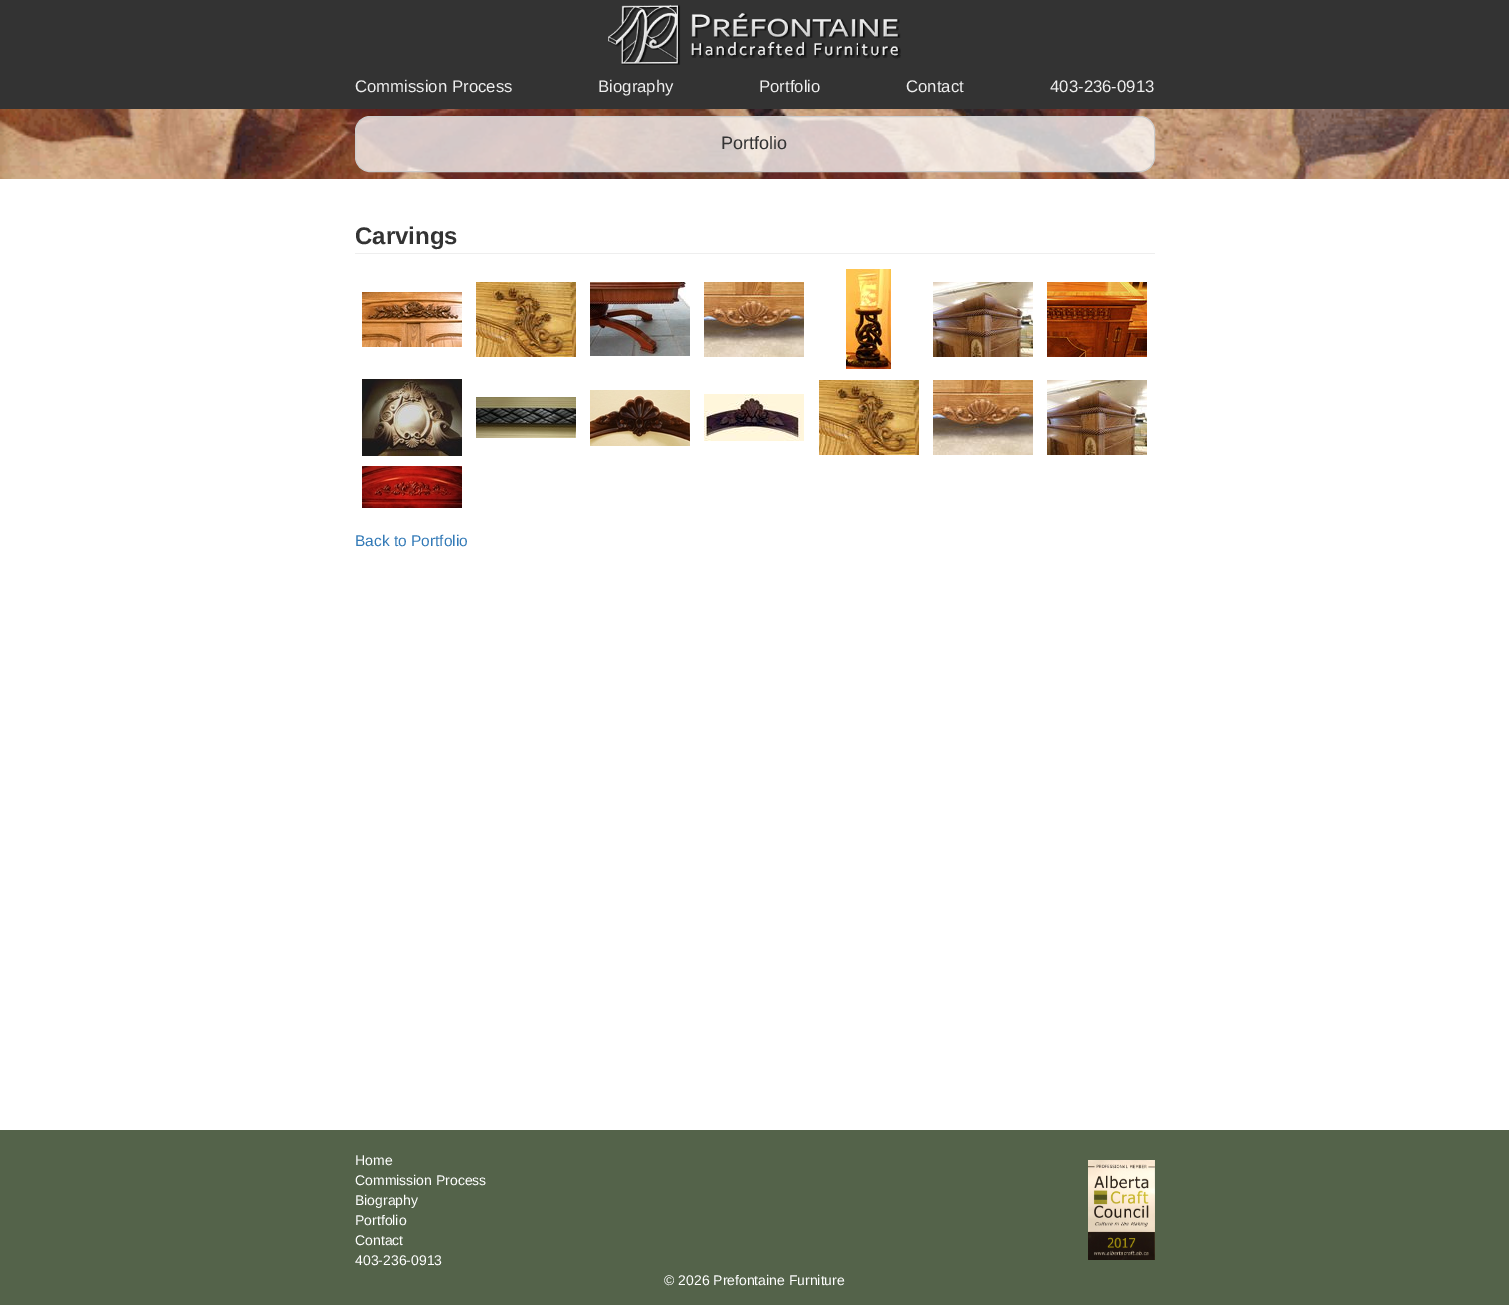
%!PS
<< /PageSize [1509 1305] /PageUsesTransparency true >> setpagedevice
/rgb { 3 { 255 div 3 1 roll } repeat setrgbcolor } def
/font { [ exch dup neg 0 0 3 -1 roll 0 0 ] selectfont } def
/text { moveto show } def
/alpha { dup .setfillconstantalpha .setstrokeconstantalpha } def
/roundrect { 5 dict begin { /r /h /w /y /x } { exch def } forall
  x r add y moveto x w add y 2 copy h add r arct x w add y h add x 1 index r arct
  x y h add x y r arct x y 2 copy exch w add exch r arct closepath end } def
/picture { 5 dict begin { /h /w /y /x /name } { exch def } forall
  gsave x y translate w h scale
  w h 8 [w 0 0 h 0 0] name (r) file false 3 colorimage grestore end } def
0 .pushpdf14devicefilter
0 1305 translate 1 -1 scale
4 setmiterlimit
255 255 255 rgb
0 0 1509 1305 rectfill
51 51 51 rgb
0 0 1509 109 rectfill
(img_01.rgb) 608 5 293 60 picture
(img_02.rgb) 0 109 1509 70 picture
0.75 alpha
255 255 255 rgb
355.5 116.5 799 55 14.5 roundrect fill
1 alpha
204 204 204 rgb
355.5 116.5 799 55 14.5 roundrect stroke
238 238 238 rgb
355 253 800 1 rectfill
(img_03.rgb) 362 292 100 55 picture
(img_04.rgb) 476 282 100 75 picture
(img_05.rgb) 590 282 100 74 picture
(img_06.rgb) 704 282 100 75 picture
(img_07.rgb) 846 269 45 100 picture
(img_08.rgb) 933 282 100 75 picture
(img_09.rgb) 1047 282 100 75 picture
(img_10.rgb) 362 379 100 77 picture
(img_11.rgb) 476 397 100 41 picture
(img_12.rgb) 590 390 100 56 picture
(img_13.rgb) 704 394 100 47 picture
(img_04.rgb) 819 380 100 75 picture
(img_06.rgb) 933 380 100 75 picture
(img_08.rgb) 1047 380 100 75 picture
(img_14.rgb) 362 466 100 42 picture
84 99 74 rgb
0 1130 1509 175 rectfill
(img_15.rgb) 1088 1160 67 100 picture
/LiberationSans-Regular 16.75 font
238 238 238 rgb
(Commission Process) 355 92 text
(Biography) 598 92 text
(Portfolio) 759 92 text
(Contact) 906 92 text
(403-236-0913) 1050 92 text
/LiberationSans-Regular 18 font
51 51 51 rgb
(Portfolio) 721 149 text
/LiberationSans-Bold 24 font
(Carvings) 355 244 text
/LiberationSans-Regular 15.5 font
51 122 183 rgb
(Back to Portfolio) 355 546 text
/LiberationSans-Regular 14 font
255 255 255 rgb
(Home) 355 1165 text
(Commission Process) 355 1185 text
(Biography) 355 1205 text
(Portfolio) 355 1225 text
(Contact) 355 1245 text
(403-236-0913) 355 1265 text
(© 2026 Prefontaine Furniture) 664 1285 text
.poppdf14devicefilter showpage
